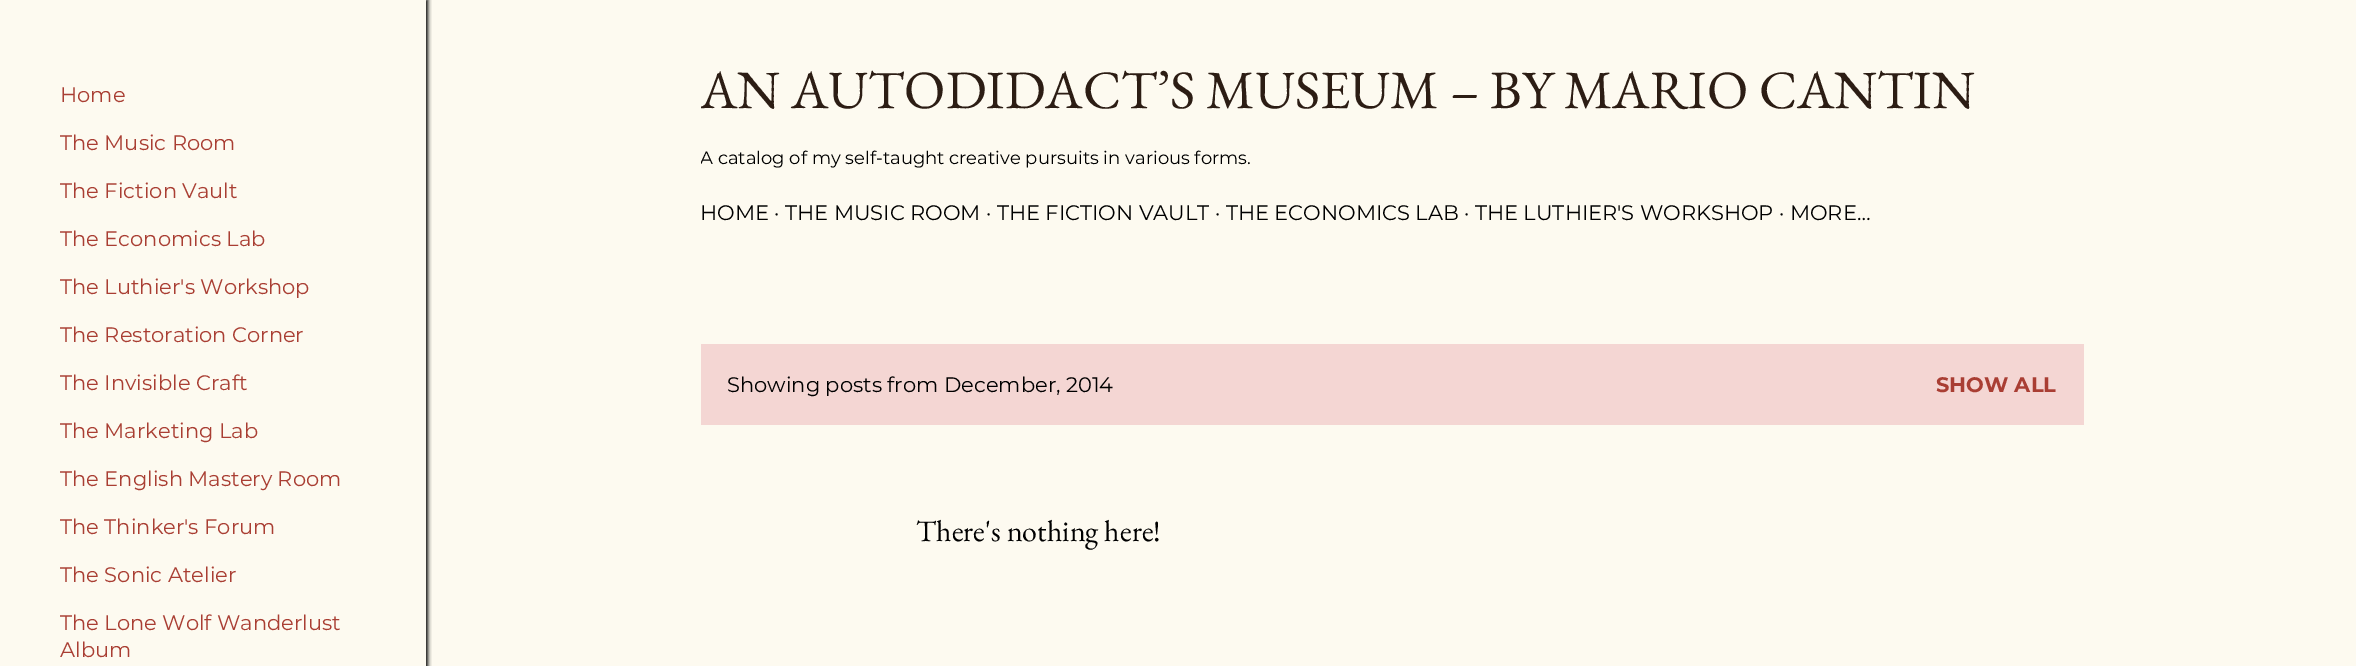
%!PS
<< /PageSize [2356 666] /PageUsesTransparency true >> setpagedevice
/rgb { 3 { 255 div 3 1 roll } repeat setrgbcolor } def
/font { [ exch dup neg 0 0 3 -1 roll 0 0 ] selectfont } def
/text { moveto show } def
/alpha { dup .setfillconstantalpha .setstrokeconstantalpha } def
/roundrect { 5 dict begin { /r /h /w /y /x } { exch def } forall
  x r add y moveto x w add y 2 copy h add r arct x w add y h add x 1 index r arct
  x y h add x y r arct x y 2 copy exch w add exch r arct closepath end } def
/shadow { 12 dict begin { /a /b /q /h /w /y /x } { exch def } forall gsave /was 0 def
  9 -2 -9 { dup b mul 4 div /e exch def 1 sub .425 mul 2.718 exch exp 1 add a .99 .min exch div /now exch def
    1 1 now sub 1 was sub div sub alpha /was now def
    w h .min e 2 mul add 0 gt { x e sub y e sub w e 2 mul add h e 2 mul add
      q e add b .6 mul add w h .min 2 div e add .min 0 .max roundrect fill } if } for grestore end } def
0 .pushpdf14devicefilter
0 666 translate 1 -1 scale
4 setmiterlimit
253 250 240 rgb
0 0 2356 666 rectfill
gsave
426 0 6 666 rectclip
0 0 0 rgb
2 0 426 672 0 2 1 shadow
grestore
244 214 211 rgb
701 344 1383 81 rectfill
/Montserrat-Regular 21 font
169 62 51 rgb
(Home) 60 102 text
(The Music Room) 60 150 text
(The Fiction Vault) 60 198 text
(The Economics Lab) 60 246 text
(The Luthier's Workshop) 60 294 text
(The Restoration Corner) 60 342 text
(The Invisible Craft) 60 390 text
(The Marketing Lab) 60 438 text
(The English Mastery Room) 60 486 text
(The Thinker's Forum) 60 534 text
(The Sonic Atelier) 60 582 text
(The Lone Wolf Wanderlust) 60 630 text
(Album) 60 657 text
gsave
701 54 1383 179 rectclip
/EBGaramond-Regular 54 font
44 29 20 rgb
(AN AUTODIDACT’S MUSEUM – BY MARIO CANTIN) 700 108 text
/Montserrat-Regular 18 font
0 0 0 rgb
(A catalog of my self-taught creative pursuits in various forms.) 700 164 text
grestore
0 0 0 rgb
(HOME · THE MUSIC ROOM · THE FICTION VAULT · THE ECONOMICS LAB · THE LUTHIER'S WORKSHOP · MORE…) 700 220 text
(Showing posts from December, 2014) 727 392 text
/Montserrat-Bold 21 font
169 62 51 rgb
(SHOW ALL) 1936 392 text
/EBGaramond-Regular 30 font
0 0 0 rgb
(There's nothing here!) 916 541 text
.poppdf14devicefilter showpage
